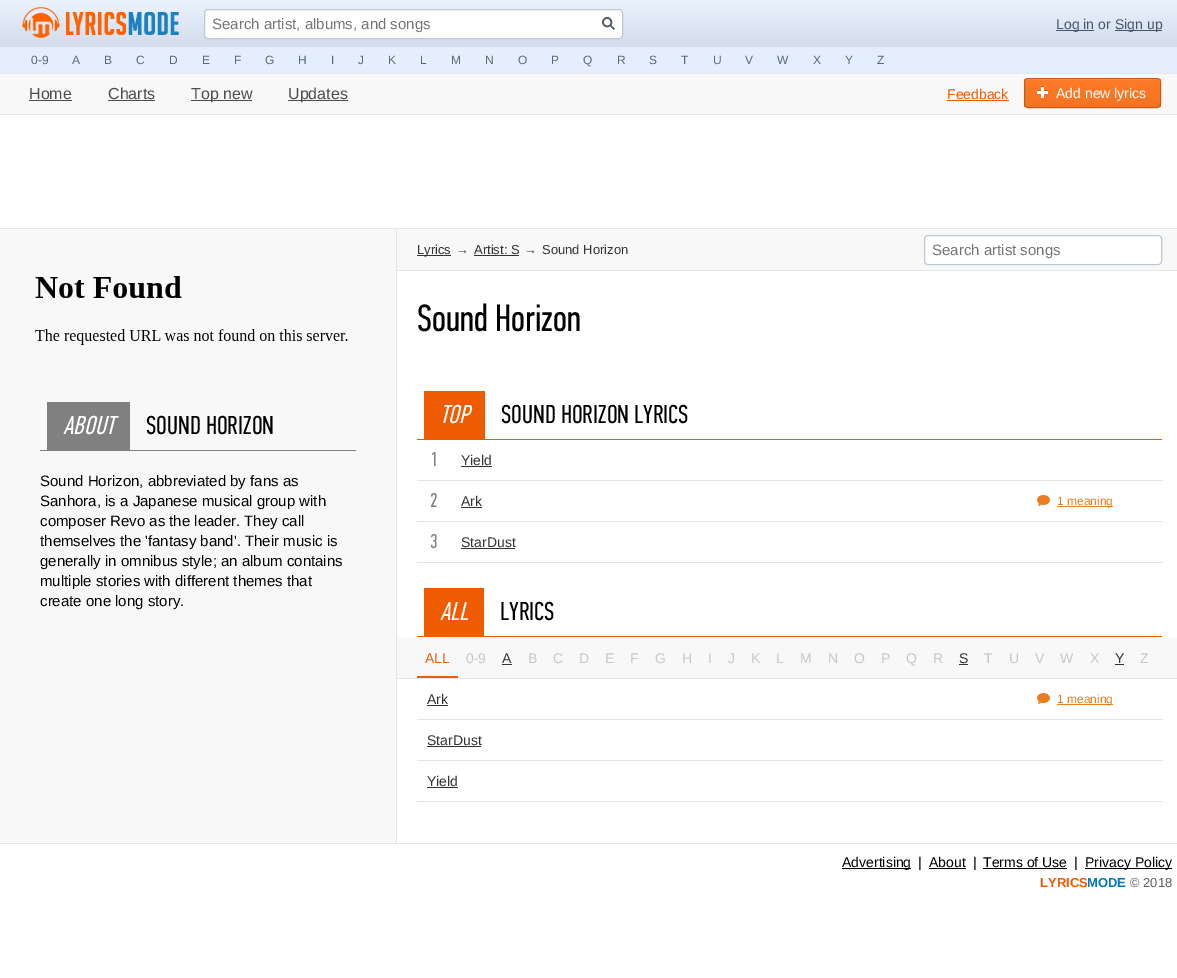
%!PS
<< /PageSize [1177 978] >> setpagedevice
/rgb { 3 { 255 div 3 1 roll } repeat setrgbcolor } def
/font { [ exch dup neg 0 0 3 -1 roll 0 0 ] selectfont } def
/text { moveto show } def
/roundrect { 5 dict begin { /r /h /w /y /x } { exch def } forall
  x r add y moveto x w add y 2 copy h add r arct x w add y h add x 1 index r arct
  x y h add x y r arct x y 2 copy exch w add exch r arct closepath end } def
/picture { 5 dict begin { /h /w /y /x /name } { exch def } forall
  gsave x y translate w h scale
  w h 8 [w 0 0 h 0 0] name (r) file false 3 colorimage grestore end } def
0 978 translate 1 -1 scale
4 setmiterlimit
255 255 255 rgb
0 0 1177 978 rectfill
gsave 0 0 moveto 1177 0 rlineto 0 47 rlineto -1177 0 rlineto closepath clip newpath
<< /ShadingType 2 /ColorSpace /DeviceRGB /Coords [591 0 591 47] /Extend [true true] /Function << /FunctionType 2 /Domain [0 1] /C0 [0.918 0.953 0.992] /C1 [0.824 0.863 0.922] /N 1 >> >> shfill grestore
(img_01.rgb) 22 7 157 31 picture
204.5 9.5 418 29 3.5 roundrect gsave fill grestore
188 200 214 rgb
stroke
(img_02.rgb) 602 17 13 13 picture
69 86 106 rgb
1056 30 38 1 rectfill
1115 30 47 1 rectfill
229 239 252 rgb
0 47 1177 26 rectfill
248 248 248 rgb
0 74 1177 40 rectfill
230 230 230 rgb
0 73 1177 1 rectfill
0 114 1177 1 rectfill
77 77 77 rgb
29 100 43 1 rectfill
108 100 47 1 rectfill
191 100 61 1 rectfill
288 100 60 1 rectfill
238 91 1 rgb
947 100 62 1 rectfill
gsave
1024 78 137 30 4 roundrect clip newpath
gsave 1024 79 moveto 137 0 rlineto 0 28 rlineto -137 0 rlineto closepath clip newpath
<< /ShadingType 2 /ColorSpace /DeviceRGB /Coords [1093 79 1093 107] /Extend [true true] /Function << /FunctionType 2 /Domain [0 1] /C0 [1 0.486 0.161] /C1 [0.953 0.451 0.125] /N 1 >> >> shfill grestore
grestore
255 154 69 rgb
1028 80 moveto 129 0 rlineto 2 0 3 1 3 3 rcurveto 0 -2 0 -4 -2 -4 rcurveto -131 0 rlineto -2 0 -2 2 -2 4 rcurveto 0 -2 1 -3 3 -3 rcurveto closepath fill
202 91 23 rgb
1024.5 78.5 136 29 3.5 roundrect stroke
(img_03.rgb) 1037 86 11 12 picture
230 230 230 rgb
0 228 1177 1 rectfill
248 248 248 rgb
0 229 396 614 rectfill
(img_04.rgb) 35 276 313 69 picture
128 128 128 rgb
40 450 316 1 rectfill
47 402 83 48 rectfill
230 230 230 rgb
396 229 1 614 rectfill
248 248 248 rgb
397 229 780 41 rectfill
230 230 230 rgb
397 270 780 1 rectfill
51 51 51 rgb
417 255 34 1 rectfill
474 255 45 1 rectfill
255 255 255 rgb
924.5 235.5 237 29 3.5 roundrect gsave fill grestore
188 200 214 rgb
stroke
238 91 1 rgb
417 439 745 1 rectfill
424 391 61 48 rectfill
229 229 229 rgb
417 480 746 1 rectfill
51 51 51 rgb
461 466 31 1 rectfill
229 229 229 rgb
417 521 746 1 rectfill
51 51 51 rgb
461 507 21 1 rectfill
(img_05.rgb) 1037 495 13 11 picture
230 126 34 rgb
1057 506 56 1 rectfill
229 229 229 rgb
417 562 746 1 rectfill
51 51 51 rgb
461 548 54 1 rectfill
238 91 1 rgb
417 636 745 1 rectfill
424 588 60 48 rectfill
248 248 248 rgb
397 637 780 41 rectfill
230 230 230 rgb
397 678 780 1 rectfill
238 91 1 rgb
417 676 41 2 rectfill
51 51 51 rgb
502 664 10 1 rectfill
959 664 9 1 rectfill
1115 664 9 1 rectfill
229 229 229 rgb
417 719 746 1 rectfill
51 51 51 rgb
427 705 21 1 rectfill
(img_05.rgb) 1037 693 13 11 picture
230 126 34 rgb
1057 704 56 1 rectfill
229 229 229 rgb
417 760 746 1 rectfill
51 51 51 rgb
427 746 54 1 rectfill
229 229 229 rgb
417 801 746 1 rectfill
51 51 51 rgb
427 787 31 1 rectfill
230 230 230 rgb
0 843 1177 1 rectfill
0 0 0 rgb
842 868 69 1 rectfill
929 868 37 1 rectfill
983 868 84 1 rectfill
1085 868 87 1 rectfill
/LiberationSans-Regular 15 font
117 117 117 rgb
(Search artist, albums, and songs) 212 29 text
/LiberationSans-Regular 14 font
69 86 106 rgb
(Log in or) 1056 29 text
(Sign up) 1115 29 text
/LiberationSans-Regular 12 font
91 104 121 rgb
(0-9) 31 64 text
(A) 72 64 text
(B) 104 64 text
(C) 136 64 text
(D) 169 64 text
(E) 202 64 text
(F) 234 64 text
(G) 265 64 text
(H) 298 64 text
(I) 331 64 text
(J) 358 64 text
(K) 388 64 text
(L) 420 64 text
(M) 451 64 text
(N) 485 64 text
(O) 518 64 text
(P) 551 64 text
(Q) 583 64 text
(R) 617 64 text
(S) 649 64 text
(T) 681 64 text
(U) 713 64 text
(V) 745 64 text
(W) 777 64 text
(X) 813 64 text
(Y) 845 64 text
(Z) 877 64 text
/LiberationSans-Regular 16 font
77 77 77 rgb
(Home) 29 99 text
(Charts) 108 99 text
(Top new) 191 99 text
(Updates) 288 99 text
/LiberationSans-Regular 14 font
238 91 1 rgb
(Feedback) 947 99 text
255 255 255 rgb
(Add new lyrics) 1056 98 text
/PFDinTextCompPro-Italic 26 font
(ABOUT) 63 434 text
/PFDinTextCompPro-Regular 26 font
0 0 0 rgb
(SOUND HORIZON) 146 434 text
/LiberationSans-Regular 15 font
(Sound Horizon, abbreviated by fans as) 40 486 text
(Sanhora, is a Japanese musical group with) 40 506 text
(composer Revo as the leader. They call) 40 526 text
(themselves the 'fantasy band'. Their music is) 40 546 text
(generally in omnibus style; an album contains) 40 566 text
(multiple stories with different themes that) 40 586 text
(create one long story.) 40 606 text
/LiberationSans-Regular 13 font
51 51 51 rgb
(Lyrics) 417 254 text
(→) 456 254 text
(Artist: S) 474 254 text
(→) 524 254 text
(Sound Horizon) 542 254 text
/LiberationSans-Regular 15 font
117 117 117 rgb
(Search artist songs) 932 255 text
/PFDinTextCompPro-Regular 38 font
0 0 0 rgb
(Sound Horizon) 417 331 text
/PFDinTextCompPro-Italic 26 font
255 255 255 rgb
(TOP) 440 423 text
/PFDinTextCompPro-Regular 26 font
0 0 0 rgb
(SOUND HORIZON LYRICS) 501 423 text
/PFDinTextCompPro-Regular 20 font
128 128 128 rgb
(1) 430 466 text
/LiberationSans-Regular 14 font
51 51 51 rgb
(Yield) 461 465 text
/PFDinTextCompPro-Regular 20 font
128 128 128 rgb
(2) 430 507 text
/LiberationSans-Regular 14 font
51 51 51 rgb
(Ark) 461 506 text
/LiberationSans-Regular 12 font
230 126 34 rgb
(1 meaning) 1057 505 text
/PFDinTextCompPro-Regular 20 font
128 128 128 rgb
(3) 430 548 text
/LiberationSans-Regular 14 font
51 51 51 rgb
(StarDust) 461 547 text
/PFDinTextCompPro-Italic 26 font
255 255 255 rgb
(ALL) 440 620 text
/PFDinTextCompPro-Regular 26 font
0 0 0 rgb
(LYRICS) 500 620 text
/LiberationSans-Regular 14 font
238 91 1 rgb
(ALL) 425 663 text
199 199 199 rgb
(0-9) 466 663 text
51 51 51 rgb
(A) 502 663 text
199 199 199 rgb
(B) 528 663 text
(C) 553 663 text
(D) 579 663 text
(E) 605 663 text
(F) 630 663 text
(G) 655 663 text
(H) 682 663 text
(I) 708 663 text
(J) 728 663 text
(K) 751 663 text
(L) 776 663 text
(M) 800 663 text
(N) 828 663 text
(O) 854 663 text
(P) 881 663 text
(Q) 906 663 text
(R) 933 663 text
51 51 51 rgb
(S) 959 663 text
199 199 199 rgb
(T) 984 663 text
(U) 1009 663 text
(V) 1035 663 text
(W) 1060 663 text
(X) 1090 663 text
51 51 51 rgb
(Y) 1115 663 text
199 199 199 rgb
(Z) 1140 663 text
51 51 51 rgb
(Ark) 427 704 text
/LiberationSans-Regular 12 font
230 126 34 rgb
(1 meaning) 1057 703 text
/LiberationSans-Regular 14 font
51 51 51 rgb
(StarDust) 427 745 text
(Yield) 427 786 text
0 0 0 rgb
(Advertising) 842 867 text
(|) 918 867 text
(About) 929 867 text
(|) 973 867 text
(Terms of Use) 983 867 text
(|) 1074 867 text
(Privacy Policy) 1085 867 text
/LiberationSans-Bold 13 font
238 91 1 rgb
(LYRICS) 1040 887 text
2 119 189 rgb
(MODE) 1087 887 text
/LiberationSans-Regular 13 font
97 97 97 rgb
(© 2018) 1130 887 text
showpage
